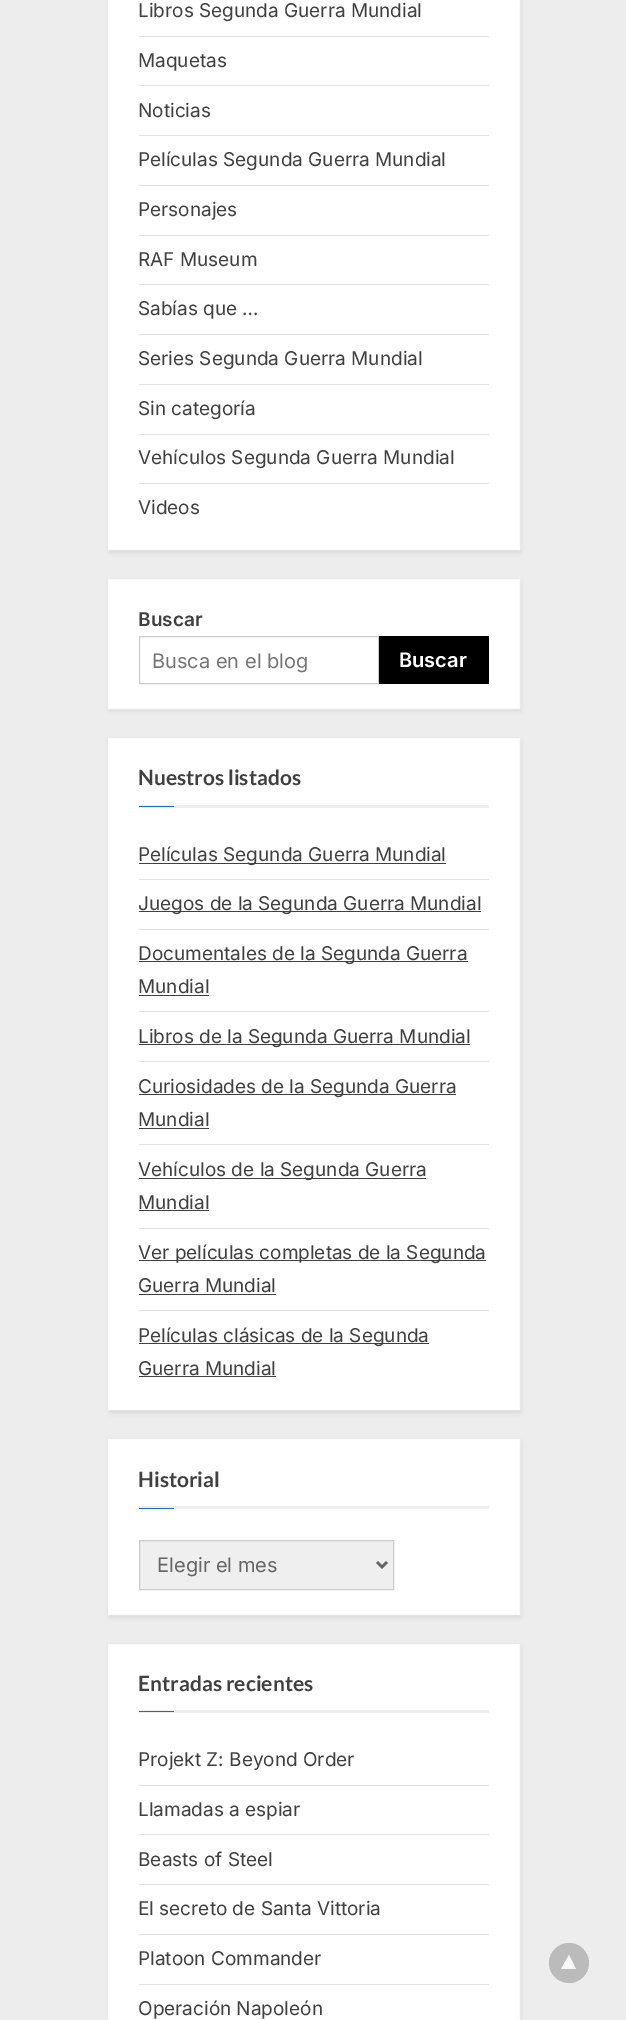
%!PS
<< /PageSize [626 2020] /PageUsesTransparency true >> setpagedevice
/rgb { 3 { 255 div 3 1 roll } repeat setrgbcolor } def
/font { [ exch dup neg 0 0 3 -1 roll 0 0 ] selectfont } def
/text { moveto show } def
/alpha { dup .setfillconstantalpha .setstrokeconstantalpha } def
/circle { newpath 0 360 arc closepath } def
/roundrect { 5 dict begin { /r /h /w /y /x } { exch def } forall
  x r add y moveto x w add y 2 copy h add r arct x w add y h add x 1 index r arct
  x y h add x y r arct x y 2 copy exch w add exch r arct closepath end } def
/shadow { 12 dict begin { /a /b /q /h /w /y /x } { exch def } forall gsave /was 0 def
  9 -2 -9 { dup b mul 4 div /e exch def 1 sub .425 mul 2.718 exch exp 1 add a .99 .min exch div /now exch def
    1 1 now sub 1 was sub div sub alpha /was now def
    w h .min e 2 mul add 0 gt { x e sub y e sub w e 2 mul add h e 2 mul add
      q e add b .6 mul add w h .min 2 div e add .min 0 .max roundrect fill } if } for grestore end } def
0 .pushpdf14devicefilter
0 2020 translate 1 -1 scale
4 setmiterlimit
237 237 237 rgb
0 0 626 2020 rectfill
0 0 0 rgb
109 -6 412 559 0 2 0.07 shadow
255 255 255 rgb
108.5 -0.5 moveto 411 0 rlineto 0 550 rlineto -411 0 rlineto closepath gsave fill grestore
250 250 250 rgb
stroke
225 225 225 rgb
139 36 350 1 rectfill
139 85 350 1 rectfill
139 135 350 1 rectfill
139 185 350 1 rectfill
139 235 350 1 rectfill
139 284 350 1 rectfill
139 334 350 1 rectfill
139 384 350 1 rectfill
139 434 350 1 rectfill
139 483 350 1 rectfill
0 0 0 rgb
109 581 412 130 0 2 0.07 shadow
255 255 255 rgb
108.5 579.5 moveto 411 0 rlineto 0 129 rlineto -411 0 rlineto closepath gsave fill grestore
250 250 250 rgb
stroke
204 204 204 rgb
139.5 636.5 239 47 rectstroke
0 0 0 rgb
379 636 110 48 rectfill
109 740 412 673 0 2 0.07 shadow
255 255 255 rgb
108.5 738.5 moveto 411 0 rlineto 0 671 rlineto -411 0 rlineto closepath gsave fill grestore
250 250 250 rgb
stroke
238 238 238 rgb
139 805 350 3 rectfill
22 109 214 rgb
139 806 35 1 rectfill
225 225 225 rgb
139 879 350 1 rectfill
64 64 64 rgb
139 863 307 1 rectfill
225 225 225 rgb
139 929 350 1 rectfill
64 64 64 rgb
139 911 342 1 rectfill
225 225 225 rgb
139 1011 350 1 rectfill
64 64 64 rgb
139 961 329 1 rectfill
139 995 70 1 rectfill
225 225 225 rgb
139 1061 350 1 rectfill
64 64 64 rgb
139 1044 331 1 rectfill
225 225 225 rgb
139 1144 350 1 rectfill
64 64 64 rgb
139 1094 317 1 rectfill
139 1128 70 1 rectfill
225 225 225 rgb
139 1228 350 1 rectfill
64 64 64 rgb
139 1178 287 1 rectfill
139 1210 70 1 rectfill
225 225 225 rgb
139 1310 350 1 rectfill
64 64 64 rgb
139 1260 347 1 rectfill
139 1294 137 1 rectfill
139 1343 290 1 rectfill
139 1376 137 1 rectfill
0 0 0 rgb
109 1441 412 177 0 2 0.07 shadow
255 255 255 rgb
108.5 1439.5 moveto 411 0 rlineto 0 175 rlineto -411 0 rlineto closepath gsave fill grestore
250 250 250 rgb
stroke
238 238 238 rgb
139 1506 350 3 rectfill
22 109 214 rgb
139 1508 35 1 rectfill
239 239 239 rgb
139.5 1540.5 moveto 254 0 rlineto 0 49 rlineto -254 0 rlineto closepath gsave fill grestore
204 204 204 rgb
stroke
102 102 102 rgb
2.5 setlinewidth
377 1562 moveto 5 5 rlineto 5 -5 rlineto stroke
0 0 0 rgb
109 1646 412 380 0 2 0.07 shadow
255 255 255 rgb
108.5 1644.5 moveto 411 0 rlineto 0 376 rlineto -411 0 rlineto closepath gsave fill grestore
250 250 250 rgb
1 setlinewidth
stroke
238 238 238 rgb
139 1710 350 3 rectfill
22 109 214 rgb
139 1711 35 1 rectfill
225 225 225 rgb
139 1785 350 1 rectfill
139 1834 350 1 rectfill
139 1884 350 1 rectfill
139 1934 350 1 rectfill
139 1984 350 1 rectfill
0.35 alpha
95 95 95 rgb
569 1963 20 circle fill
1 alpha
248 248 248 rgb
576 1969 moveto -15 0 rlineto 8 -14 rlineto closepath fill
/Inter-Regular 19 font
64 64 64 rgb
(Libros Segunda Guerra Mundial) 138 17 text
(Maquetas) 138 67 text
(Noticias) 138 117 text
(Películas Segunda Guerra Mundial) 138 166 text
(Personajes) 138 216 text
(RAF Museum) 138 266 text
(Sabías que …) 138 315 text
(Series Segunda Guerra Mundial) 138 365 text
(Sin categoría) 138 415 text
(Vehículos Segunda Guerra Mundial) 138 464 text
(Videos) 138 514 text
/Inter-SemiBold 19 font
(Buscar) 138 626 text
/Inter-Regular 20 font
117 117 117 rgb
(Busca en el blog) 152 668 text
/Inter-SemiBold 20 font
255 255 255 rgb
(Buscar) 399 667 text
/Lato-Bold 21 font
64 64 64 rgb
(Nuestros listados) 138 785 text
/Inter-Regular 19 font
(Películas Segunda Guerra Mundial) 138 861 text
(Juegos de la Segunda Guerra Mundial) 138 910 text
(Documentales de la Segunda Guerra) 138 960 text
(Mundial) 138 993 text
(Libros de la Segunda Guerra Mundial) 138 1043 text
(Curiosidades de la Segunda Guerra) 138 1093 text
(Mundial) 138 1126 text
(Vehículos de la Segunda Guerra) 138 1176 text
(Mundial) 138 1209 text
(Ver películas completas de la Segunda) 138 1259 text
(Guerra Mundial) 138 1292 text
(Películas clásicas de la Segunda) 138 1342 text
(Guerra Mundial) 138 1375 text
/Lato-Bold 21 font
(Historial) 138 1487 text
/Inter-Regular 20 font
102 102 102 rgb
(Elegir el mes) 157 1572 text
/Lato-Bold 21 font
64 64 64 rgb
(Entradas recientes) 138 1691 text
/Inter-Regular 19 font
(Projekt Z: Beyond Order) 138 1766 text
(Llamadas a espiar) 138 1816 text
(Beasts of Steel) 138 1866 text
(El secreto de Santa Vittoria) 138 1915 text
(Platoon Commander) 138 1965 text
(Operación Napoleón) 138 2015 text
.poppdf14devicefilter showpage
